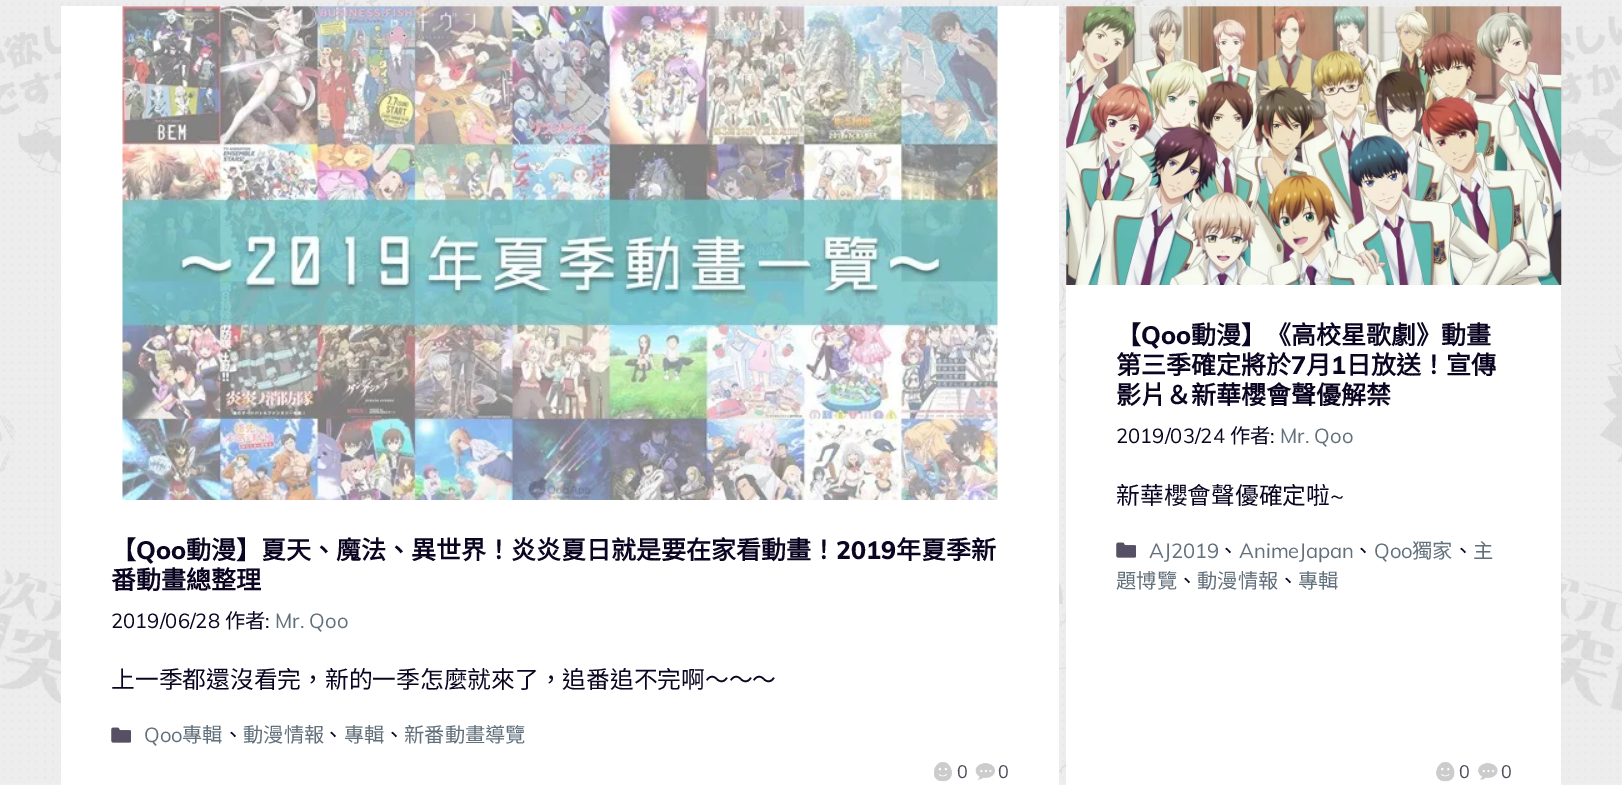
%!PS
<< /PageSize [1622 785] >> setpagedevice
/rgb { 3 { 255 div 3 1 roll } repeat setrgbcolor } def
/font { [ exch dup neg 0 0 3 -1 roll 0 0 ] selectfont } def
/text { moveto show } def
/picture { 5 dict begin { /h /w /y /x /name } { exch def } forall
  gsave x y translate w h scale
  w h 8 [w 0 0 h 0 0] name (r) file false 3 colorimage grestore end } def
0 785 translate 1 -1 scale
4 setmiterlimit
255 255 255 rgb
0 0 1622 785 rectfill
(img_01.rgb) 0 0 1622 785 picture
61 6 998 779 rectfill
(img_02.rgb) 122 6 876 494 picture
(img_03.rgb) 934 762 18 20 picture
(img_04.rgb) 975 763 20 17 picture
(img_05.rgb) 111 727 20 16 picture
1066 6 495 779 rectfill
(img_06.rgb) 1066 6 496 279 picture
(img_07.rgb) 1436 762 19 20 picture
(img_08.rgb) 1478 763 20 17 picture
(img_05.rgb) 1116 542 20 16 picture
/NotoSansCJKTC-Bold 25 font
11 5 33 rgb
(【) 111 559 text
/Muli-ExtraBold 25 font
(Qoo) 136 559 text
/NotoSansCJKTC-Bold 25 font
(動漫】夏天、魔法、異世界！炎炎夏日就是要在家看動畫！) 186 559 text
/Muli-ExtraBold 25 font
(2019) 836 559 text
/NotoSansCJKTC-Bold 25 font
(年夏季新) 896 559 text
(番動畫總整理) 111 589 text
/Muli-Regular 20.25 font
(2019/06/28) 111 628 text
/NotoSansCJKTC-Regular 20.25 font
(作者) 225 628 text
/Muli-Regular 20.25 font
(:) 265 628 text
98 112 124 rgb
(Mr. Qoo) 275 628 text
/Muli-Regular 18 font
76 76 92 rgb
(0) 957 778 text
(0) 998 778 text
/NotoSansCJKTC-Regular 23.75 font
11 5 33 rgb
(上一季都還沒看完，新的一季怎麼就來了，追番追不完啊～～～) 111 688 text
/Muli-Regular 20.25 font
98 112 124 rgb
(Qoo) 144 742 text
/NotoSansCJKTC-Regular 20.25 font
(專輯) 182 742 text
11 5 33 rgb
(、) 223 742 text
98 112 124 rgb
(動漫情報) 243 742 text
11 5 33 rgb
(、) 323 742 text
98 112 124 rgb
(專輯) 344 742 text
11 5 33 rgb
(、) 384 742 text
98 112 124 rgb
(新番動畫導覽) 404 742 text
/NotoSansCJKTC-Bold 25 font
11 5 33 rgb
(【) 1116 344 text
/Muli-ExtraBold 25 font
(Qoo) 1141 344 text
/NotoSansCJKTC-Bold 25 font
(動漫】《高校星歌劇》動畫) 1191 344 text
(第三季確定將於) 1116 374 text
/Muli-ExtraBold 25 font
(7) 1291 374 text
/NotoSansCJKTC-Bold 25 font
(月) 1306 374 text
/Muli-ExtraBold 25 font
(1) 1331 374 text
/NotoSansCJKTC-Bold 25 font
(日放送！宣傳) 1346 374 text
(影片＆新華櫻會聲優解禁) 1116 404 text
/Muli-Regular 20.25 font
(2019/03/24) 1116 443 text
/NotoSansCJKTC-Regular 20.25 font
(作者) 1230 443 text
/Muli-Regular 20.25 font
(:) 1270 443 text
98 112 124 rgb
(Mr. Qoo) 1280 443 text
/Muli-Regular 18 font
76 76 92 rgb
(0) 1459 778 text
(0) 1501 778 text
/NotoSansCJKTC-Regular 23.75 font
11 5 33 rgb
(新華櫻會聲優確定啦) 1116 504 text
/Muli-Regular 23.75 font
(~) 1330 504 text
/Muli-Regular 20.25 font
98 112 124 rgb
(AJ2019) 1149 558 text
/NotoSansCJKTC-Regular 20.25 font
11 5 33 rgb
(、) 1218 558 text
/Muli-Regular 20.25 font
98 112 124 rgb
(AnimeJapan) 1239 558 text
/NotoSansCJKTC-Regular 20.25 font
11 5 33 rgb
(、) 1353 558 text
/Muli-Regular 20.25 font
98 112 124 rgb
(Qoo) 1374 558 text
/NotoSansCJKTC-Regular 20.25 font
(獨家) 1412 558 text
11 5 33 rgb
(、) 1453 558 text
98 112 124 rgb
(主) 1473 558 text
(題博覽) 1116 588 text
11 5 33 rgb
(、) 1177 588 text
98 112 124 rgb
(動漫情報) 1197 588 text
11 5 33 rgb
(、) 1278 588 text
98 112 124 rgb
(專輯) 1298 588 text
showpage
